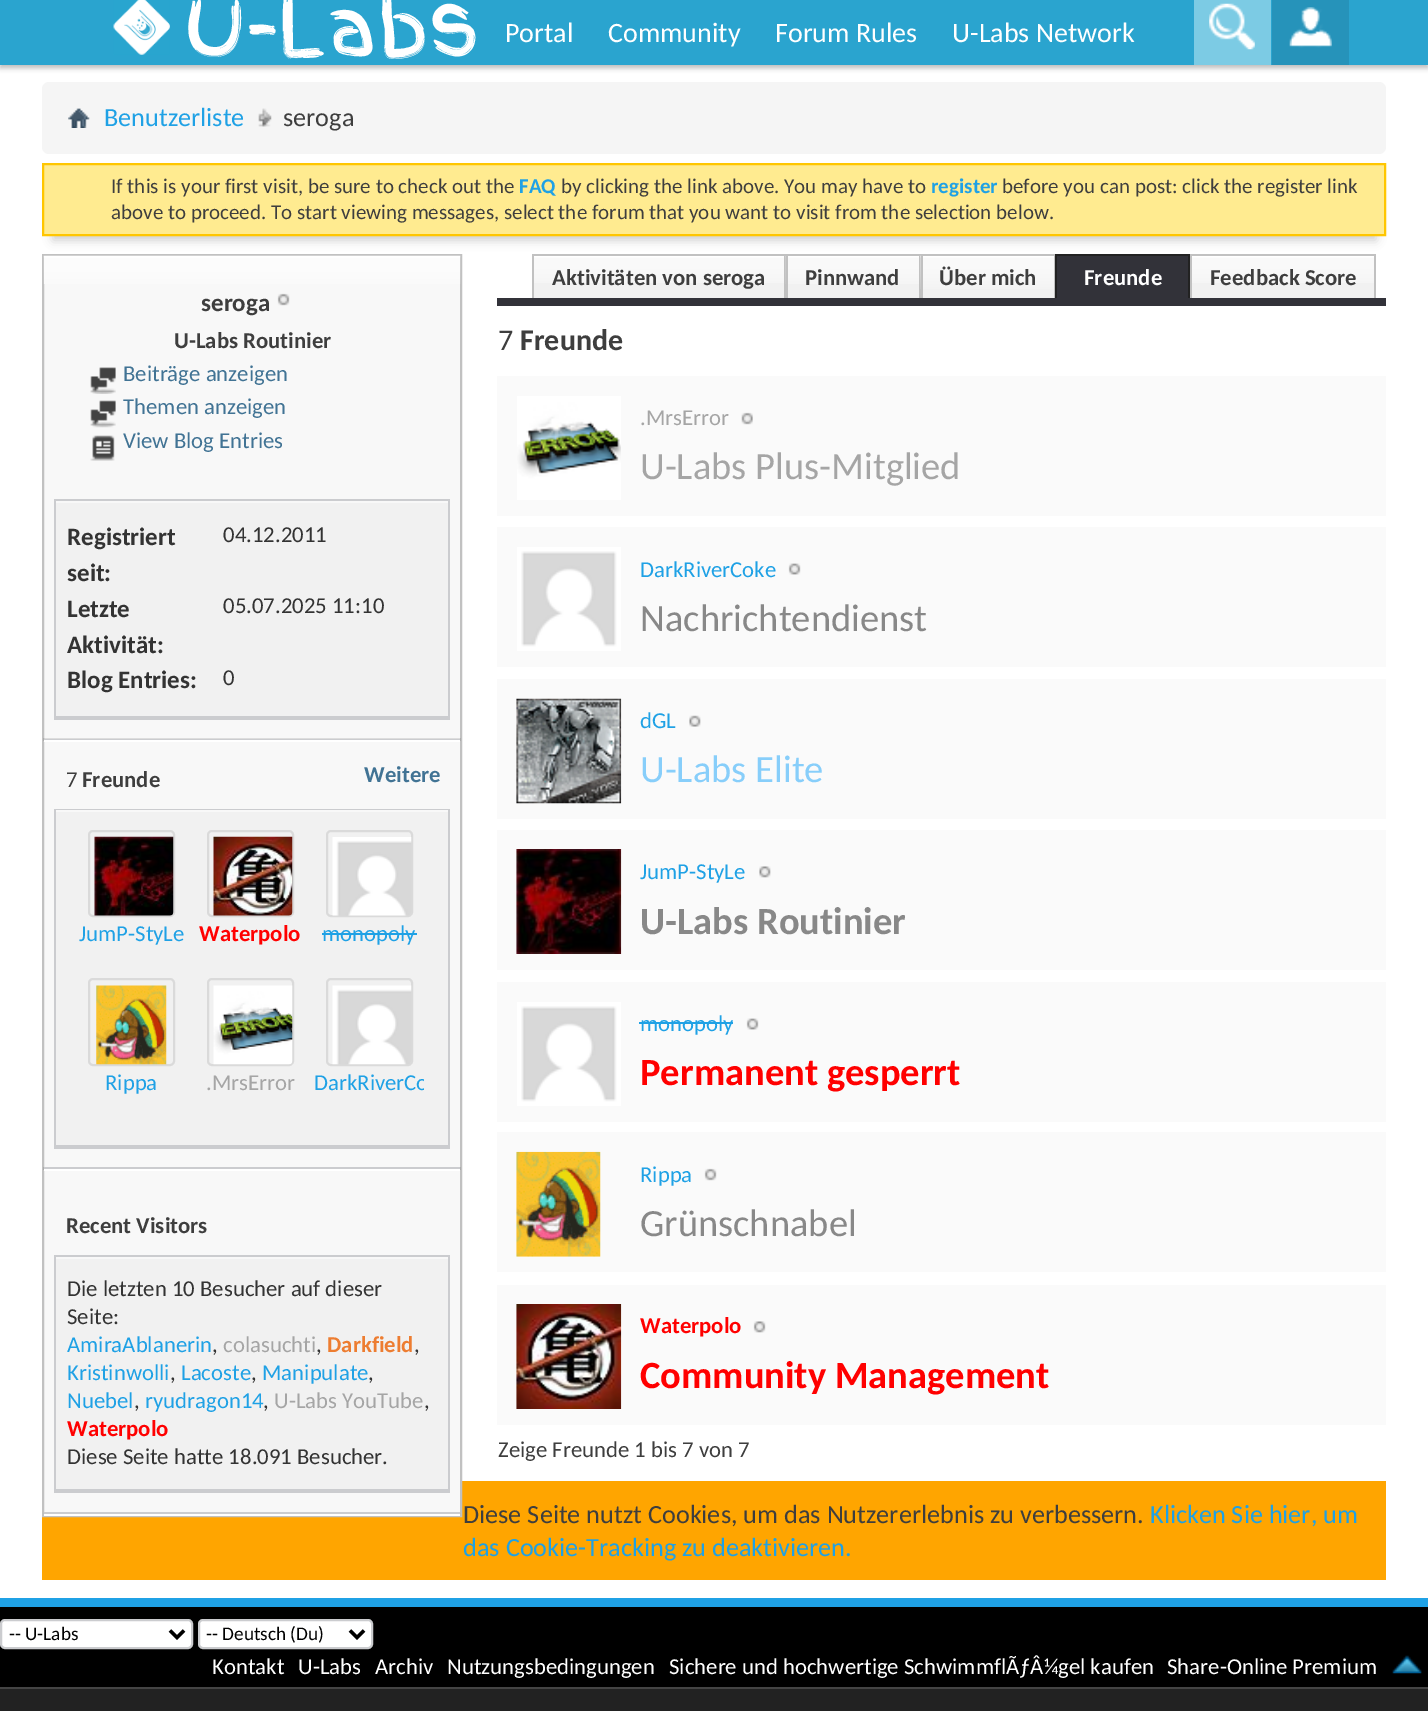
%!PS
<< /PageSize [1428 1711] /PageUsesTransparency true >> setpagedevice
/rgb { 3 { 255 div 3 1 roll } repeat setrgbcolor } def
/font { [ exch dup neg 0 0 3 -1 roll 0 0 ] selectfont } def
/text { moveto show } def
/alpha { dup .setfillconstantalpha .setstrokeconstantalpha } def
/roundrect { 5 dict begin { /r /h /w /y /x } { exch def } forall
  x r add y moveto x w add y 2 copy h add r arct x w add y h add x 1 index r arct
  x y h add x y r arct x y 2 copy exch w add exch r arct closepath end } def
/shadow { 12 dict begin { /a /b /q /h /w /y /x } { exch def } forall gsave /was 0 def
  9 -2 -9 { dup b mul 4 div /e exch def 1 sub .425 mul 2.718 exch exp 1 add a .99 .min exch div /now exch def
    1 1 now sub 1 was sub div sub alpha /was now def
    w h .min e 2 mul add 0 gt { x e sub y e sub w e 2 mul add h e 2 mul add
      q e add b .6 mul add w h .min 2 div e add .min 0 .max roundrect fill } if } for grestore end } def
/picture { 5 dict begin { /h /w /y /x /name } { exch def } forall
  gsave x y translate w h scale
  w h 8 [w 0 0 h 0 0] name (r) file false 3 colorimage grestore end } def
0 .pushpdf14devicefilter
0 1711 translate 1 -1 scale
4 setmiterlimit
255 255 255 rgb
0 0 1428 1711 rectfill
0 0 0 rgb
0 -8 1428 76 0 2.5 0.26 shadow
42 164 207 rgb
0 0 1428 65 rectfill
(img_01.rgb) 113 0 57 55 picture
(img_02.rgb) 113 24 57 31 picture
124 203 228 rgb
1194 0 77 65 rectfill
(img_03.rgb) 1209 3 46 47 picture
38 147 186 rgb
1272 0 77 65 rectfill
(img_04.rgb) 1289 7 43 41 picture
245 245 245 rgb
42 82 1344 72 7 roundrect fill
(img_05.rgb) 68 108 22 20 picture
(img_06.rgb) 258 108 14 19 picture
0 0 0 rgb
53 187 1323 53 0 5 0.2 shadow
255 235 144 rgb
43 164 moveto 1342 0 rlineto 0 71 rlineto -1342 0 rlineto closepath gsave fill grestore
255 198 0 rgb
2 setlinewidth
stroke
255 165 0 rgb
42 1481 1344 99 rectfill
248 248 248 rgb
44 257 416 1255 rectfill
193 193 193 rgb
43 255 418 1261 rectstroke
(img_07.rgb) 43 255 418 29 picture
(img_08.rgb) 277 293 13 13 picture
(img_09.rgb) 90 367 26 27 picture
(img_10.rgb) 90 400 26 28 picture
(img_11.rgb) 90 435 25 26 picture
203 204 207 rgb
54 499 396 2 rectfill
448 499 2 220 rectfill
54 716 396 4 rectfill
54 499 2 220 rectfill
241 241 241 rgb
56 503 392 213 rectfill
0.11 alpha
0 0 0 rgb
43 738 418 3 rectfill
1 alpha
203 204 207 rgb
44 739 416 1 rectfill
255 255 255 rgb
44 740 416 2 rectfill
203 204 207 rgb
54 809 396 1 rectfill
448 809 2 339 rectfill
54 1145 396 4 rectfill
54 809 2 339 rectfill
241 241 241 rgb
56 812 392 333 rectfill
218 218 218 rgb
89 831 85 85 4 roundrect stroke
(img_12.rgb) 94 836 80 80 picture
208 831 85 85 4 roundrect stroke
(img_13.rgb) 213 836 80 80 picture
327 831 85 85 4 roundrect stroke
(img_14.rgb) 332 837 80 79 picture
31 161 229 rgb
322 933 95 2 rectfill
218 218 218 rgb
89 979 85 86 4 roundrect stroke
(img_15.rgb) 96 985 71 80 picture
208 979 85 86 4 roundrect stroke
(img_16.rgb) 213 985 80 80 picture
327 979 85 86 4 roundrect stroke
(img_17.rgb) 332 985 80 80 picture
0.11 alpha
0 0 0 rgb
43 1167 418 3 rectfill
1 alpha
203 204 207 rgb
44 1167 416 2 rectfill
255 255 255 rgb
44 1169 416 2 rectfill
203 204 207 rgb
54 1255 396 2 rectfill
448 1255 2 238 rectfill
54 1489 396 4 rectfill
54 1255 2 238 rectfill
241 241 241 rgb
56 1259 392 230 rectfill
(img_18.rgb) 43 1513 418 1 picture
203 204 207 rgb
44 1512 416 2 rectfill
255 255 255 rgb
44 1514 416 2 rectfill
241 241 241 rgb
534 257 250 41 rectfill
(img_19.rgb) 534 256 250 27 picture
193 193 193 rgb
532 254 389 2 rectfill
784 254 2 44 rectfill
532 254 2 44 rectfill
241 241 241 rgb
788 257 131 41 rectfill
(img_20.rgb) 785 256 134 28 picture
193 193 193 rgb
919 254 2 44 rectfill
786 254 2 44 rectfill
241 241 241 rgb
923 257 131 41 rectfill
(img_21.rgb) 920 255 134 34 picture
193 193 193 rgb
921 254 134 2 rectfill
1054 254 1 44 rectfill
921 254 2 44 rectfill
50 50 57 rgb
1057 256 131 42 rectfill
34 34 34 rgb
1055 254 135 2 rectfill
1188 254 2 44 rectfill
1055 254 2 44 rectfill
241 241 241 rgb
1192 257 182 41 rectfill
(img_22.rgb) 1192 256 182 27 picture
193 193 193 rgb
1190 254 186 2 rectfill
1374 254 2 44 rectfill
1190 254 2 44 rectfill
50 50 57 rgb
497 298 889 8 rectfill
250 250 250 rgb
497 376 889 140 rectfill
(img_23.rgb) 517 396 104 104 picture
(img_24.rgb) 741 412 12 13 picture
497 527 889 140 rectfill
(img_25.rgb) 517 547 104 104 picture
(img_26.rgb) 788 563 13 12 picture
497 679 889 140 rectfill
(img_27.rgb) 516 698 106 106 picture
(img_28.rgb) 689 715 12 12 picture
497 830 889 140 rectfill
(img_29.rgb) 516 849 106 105 picture
(img_30.rgb) 759 866 12 12 picture
497 982 889 140 rectfill
(img_25.rgb) 517 1002 104 104 picture
31 161 229 rgb
639 1022 94 2 rectfill
(img_26.rgb) 746 1018 13 12 picture
250 250 250 rgb
497 1132 889 140 rectfill
(img_31.rgb) 516 1151 85 106 picture
(img_32.rgb) 704 1168 13 13 picture
497 1285 889 140 rectfill
(img_33.rgb) 516 1304 106 105 picture
(img_34.rgb) 753 1321 13 12 picture
34 34 34 rgb
0 1689 1428 22 rectfill
0 0 0 rgb
0 1607 1428 80 rectfill
31 161 229 rgb
0 1598 1428 9 rectfill
255 255 255 rgb
1 1620 191 28 4 roundrect gsave fill grestore
203 204 207 rgb
stroke
0 0 0 rgb
3.5 setlinewidth
170 1630.5 moveto 7 7 rlineto 7 -7 rlineto stroke
255 255 255 rgb
199 1620 173 28 4 roundrect gsave fill grestore
203 204 207 rgb
2 setlinewidth
stroke
0 0 0 rgb
3.5 setlinewidth
350 1630.5 moveto 7 7 rlineto 7 -7 rlineto stroke
(img_35.rgb) 1392 1655 30 19 picture
68 68 68 rgb
0 1687 1428 2 rectfill
/FingerPaint-Regular 79 font
255 255 255 rgb
(U-Labs) 184 54 text
/Carlito-Regular 28 font
(Portal) 505 42 text
(Community) 608 42 text
(Forum Rules) 775 42 text
(U-Labs Network) 952 42 text
/Carlito-Regular 26.25 font
31 161 229 rgb
(Benutzerliste) 104 126 text
62 62 62 rgb
(seroga) 283 126 text
/Carlito-Regular 21 font
(If this is your first visit, be sure to check out the) 111 193 text
/Carlito-Bold 21 font
31 161 229 rgb
(FAQ) 519 193 text
/Carlito-Regular 21 font
62 62 62 rgb
(by clicking the link above. You may have to) 561 193 text
/Carlito-Bold 21 font
31 161 229 rgb
(register) 931 193 text
/Carlito-Regular 21 font
62 62 62 rgb
(before you can post: click the register link) 1002 193 text
(above to proceed. To start viewing messages, select the forum that you want to visit from the selection below.) 111 219 text
/Carlito-Bold 25 font
(seroga) 201 311 text
/Carlito-Bold 22.75 font
(U-Labs Routinier) 174 348 text
/Carlito-Regular 22.75 font
65 115 148 rgb
(Beiträge anzeigen) 123 381 text
(Themen anzeigen) 123 414 text
(View Blog Entries) 123 448 text
/Carlito-Bold 25 font
51 51 51 rgb
(Registriert) 67 545 text
(seit:) 67 581 text
/Carlito-Regular 22.75 font
(04.12.2011) 223 542 text
/Carlito-Bold 25 font
(Letzte) 67 617 text
(Aktivität:) 67 653 text
/Carlito-Regular 22.75 font
(05.07.2025 11:10) 223 613 text
/Carlito-Bold 25 font
(Blog Entries:) 67 688 text
/Carlito-Regular 22.75 font
(0) 223 685 text
62 62 62 rgb
(7) 66 787 text
/Carlito-Bold 22.75 font
(Freunde) 82 787 text
65 115 148 rgb
(Weitere) 364 782 text
/Carlito-Regular 22.75 font
31 161 229 rgb
(JumP-StyLe) 79 941 text
/Carlito-Bold 22.75 font
255 0 0 rgb
(Waterpolo) 199 941 text
/Carlito-Regular 22.75 font
31 161 229 rgb
(monopoly) 322 941 text
(Rippa) 105 1090 text
165 165 165 rgb
(.MrsError) 206 1090 text
gsave
313 978 111 149 rectclip
31 161 229 rgb
(DarkRiverCo) 314 1090 text
grestore
/Carlito-Bold 22.75 font
62 62 62 rgb
(Recent Visitors) 66 1233 text
/Carlito-Regular 22.75 font
51 51 51 rgb
(Die letzten 10 Besucher auf dieser) 67 1296 text
(Seite:) 67 1324 text
31 161 229 rgb
(AmiraAblanerin) 67 1352 text
51 51 51 rgb
(,) 212 1352 text
165 165 165 rgb
(colasuchti) 223 1352 text
51 51 51 rgb
(,) 316 1352 text
/Carlito-Bold 22.75 font
237 125 49 rgb
(Darkfield) 327 1352 text
/Carlito-Regular 22.75 font
51 51 51 rgb
(,) 414 1352 text
31 161 229 rgb
(Kristinwolli) 67 1380 text
51 51 51 rgb
(,) 170 1380 text
31 161 229 rgb
(Lacoste) 181 1380 text
51 51 51 rgb
(,) 251 1380 text
31 161 229 rgb
(Manipulate) 262 1380 text
51 51 51 rgb
(,) 368 1380 text
31 161 229 rgb
(Nuebel) 67 1408 text
51 51 51 rgb
(,) 134 1408 text
31 161 229 rgb
(ryudragon14) 145 1408 text
51 51 51 rgb
(,) 263 1408 text
165 165 165 rgb
(U-Labs YouTube) 274 1408 text
51 51 51 rgb
(,) 424 1408 text
/Carlito-Bold 22.75 font
255 0 0 rgb
(Waterpolo) 67 1436 text
/Carlito-Regular 22.75 font
51 51 51 rgb
(Diese Seite hatte 18.091 Besucher.) 67 1464 text
/Carlito-Bold 22.75 font
62 62 62 rgb
(Aktivitäten von seroga) 552 285 text
(Pinnwand) 805 285 text
(Über mich) 939 285 text
255 255 255 rgb
(Freunde) 1084 285 text
62 62 62 rgb
(Feedback Score) 1210 285 text
/Carlito-Regular 30 font
(7) 498 350 text
/Carlito-Bold 30 font
(Freunde) 520 350 text
/Carlito-Regular 22.75 font
165 165 165 rgb
(.MrsError) 640 425 text
/Carlito-Regular 38.5 font
(U-Labs Plus-Mitglied) 640 479 text
/Carlito-Regular 22.75 font
31 161 229 rgb
(DarkRiverCoke) 640 577 text
/Carlito-Regular 38.5 font
136 136 136 rgb
(Nachrichtendienst) 640 631 text
/Carlito-Regular 22.75 font
31 161 229 rgb
(dGL) 640 728 text
/Carlito-Regular 38.5 font
135 206 250 rgb
(U-Labs Elite) 640 782 text
/Carlito-Regular 22.75 font
31 161 229 rgb
(JumP-StyLe) 640 879 text
/Carlito-Bold 38.5 font
136 136 136 rgb
(U-Labs Routinier) 640 934 text
/Carlito-Regular 22.75 font
31 161 229 rgb
(monopoly) 640 1031 text
/Carlito-Bold 38.5 font
255 0 0 rgb
(Permanent gesperrt) 640 1085 text
/Carlito-Regular 22.75 font
31 161 229 rgb
(Rippa) 640 1182 text
/Carlito-Regular 38.5 font
136 136 136 rgb
(Grünschnabel) 640 1236 text
/Carlito-Bold 22.75 font
255 0 0 rgb
(Waterpolo) 640 1333 text
/Carlito-Bold 38.5 font
(Community Management) 640 1388 text
/Carlito-Regular 22.75 font
62 62 62 rgb
(Zeige Freunde 1 bis 7 von 7) 498 1457 text
/Carlito-Regular 26.25 font
(Diese Seite nutzt Cookies, um das Nutzererlebnis zu verbessern.) 463 1523 text
31 161 229 rgb
(Klicken Sie hier, um) 1150 1523 text
(das Cookie-Tracking zu deaktivieren.) 463 1556 text
/Carlito-Regular 19.25 font
0 0 0 rgb
(-- U-Labs) 9 1640 text
(-- Deutsch \(Du\)) 206 1640 text
/Carlito-Regular 22.75 font
255 255 255 rgb
(Kontakt) 212 1674 text
(U-Labs) 298 1674 text
(Archiv) 375 1674 text
(Nutzungsbedingungen) 447 1674 text
(Sichere und hochwertige SchwimmflÃƒÂ¼gel kaufen) 669 1674 text
(Share-Online Premium) 1167 1674 text
.poppdf14devicefilter showpage
